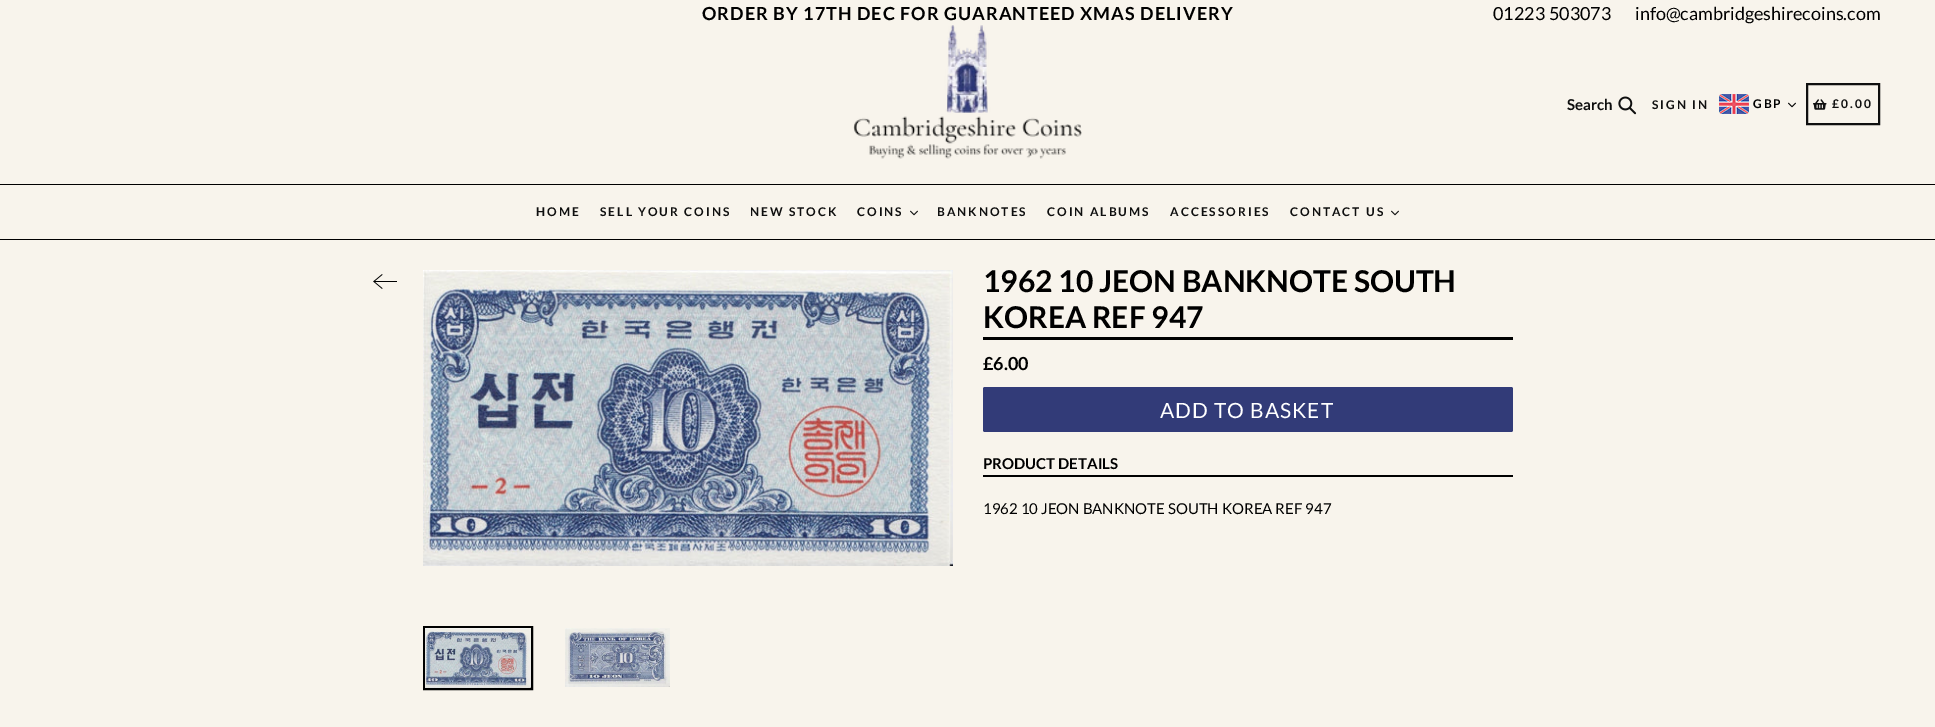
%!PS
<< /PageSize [1935 727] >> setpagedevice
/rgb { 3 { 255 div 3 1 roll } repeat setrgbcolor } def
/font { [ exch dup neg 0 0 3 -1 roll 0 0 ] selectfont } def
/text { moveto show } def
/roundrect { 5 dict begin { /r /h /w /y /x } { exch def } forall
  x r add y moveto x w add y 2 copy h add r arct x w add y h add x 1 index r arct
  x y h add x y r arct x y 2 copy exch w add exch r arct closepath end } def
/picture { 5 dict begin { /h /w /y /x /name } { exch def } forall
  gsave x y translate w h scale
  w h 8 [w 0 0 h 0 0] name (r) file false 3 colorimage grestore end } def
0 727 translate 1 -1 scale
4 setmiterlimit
248 244 236 rgb
0 0 1935 727 rectfill
0 0 0 rgb
0 184 1935 1 rectfill
(img_01.rgb) 853 25 229 134 picture
(img_02.rgb) 1618 96 19 19 picture
(img_03.rgb) 1719 94 30 20 picture
(img_04.rgb) 1788 102 8 6 picture
15 15 15 rgb
2 setlinewidth
1807 84 72 40 rectstroke
(img_05.rgb) 1813 99 14 11 picture
0 0 0 rgb
0 239 1935 1 rectfill
(img_06.rgb) 910 210 8 6 picture
(img_06.rgb) 1391 210 8 6 picture
(img_07.rgb) 373 274 24 15 picture
(img_08.rgb) 423 270 530 296 picture
424 627 108 62 rectstroke
(img_09.rgb) 425 628 106 60 picture
(img_10.rgb) 565 628 105 59 picture
983 337 530 3 rectfill
50 59 120 rgb
983 387 530 45 2 roundrect fill
0 0 0 rgb
983 475 530 2 rectfill
/Lato-Bold 18 font
702 20 moveto 1 0 (ORDER BY 17TH DEC FOR GUARANTEED XMAS DELIVERY) ashow
/Lato-Regular 18 font
(01223 503073) 1493 20 text
(info@cambridgeshirecoins.com) 1635 20 text
/Lato-Bold 15 font
15 15 15 rgb
(Search) 1567 110 text
/Lato-Bold 12 font
1652 109 moveto 2 0 (SIGN IN) ashow
0 0 0 rgb
1753 108 moveto 2 0 (GBP) ashow
15 15 15 rgb
1832 108 moveto 2 0 (£0.00) ashow
536 216 moveto 2 0 (HOME) ashow
600 216 moveto 2 0 (SELL YOUR COINS) ashow
750 216 moveto 2 0 (NEW STOCK) ashow
857 216 moveto 2 0 (COINS) ashow
937 216 moveto 2 0 (BANKNOTES) ashow
1047 216 moveto 2 0 (COIN ALBUMS) ashow
1170 216 moveto 2 0 (ACCESSORIES) ashow
1290 216 moveto 2 0 (CONTACT US) ashow
/Lato-Bold 30 font
0 0 0 rgb
(1962 10 JEON BANKNOTE SOUTH) 983 292 text
(KOREA REF 947) 983 328 text
/Lato-Bold 18 font
(£6.00) 983 370 text
/Lato-Regular 21 font
255 255 255 rgb
1160 418 moveto 1 0 (ADD TO BASKET) ashow
/Lato-Bold 15 font
0 0 0 rgb
(PRODUCT DETAILS) 983 469 text
/Lato-Regular 15 font
(1962 10 JEON BANKNOTE SOUTH KOREA REF 947) 983 514 text
showpage
